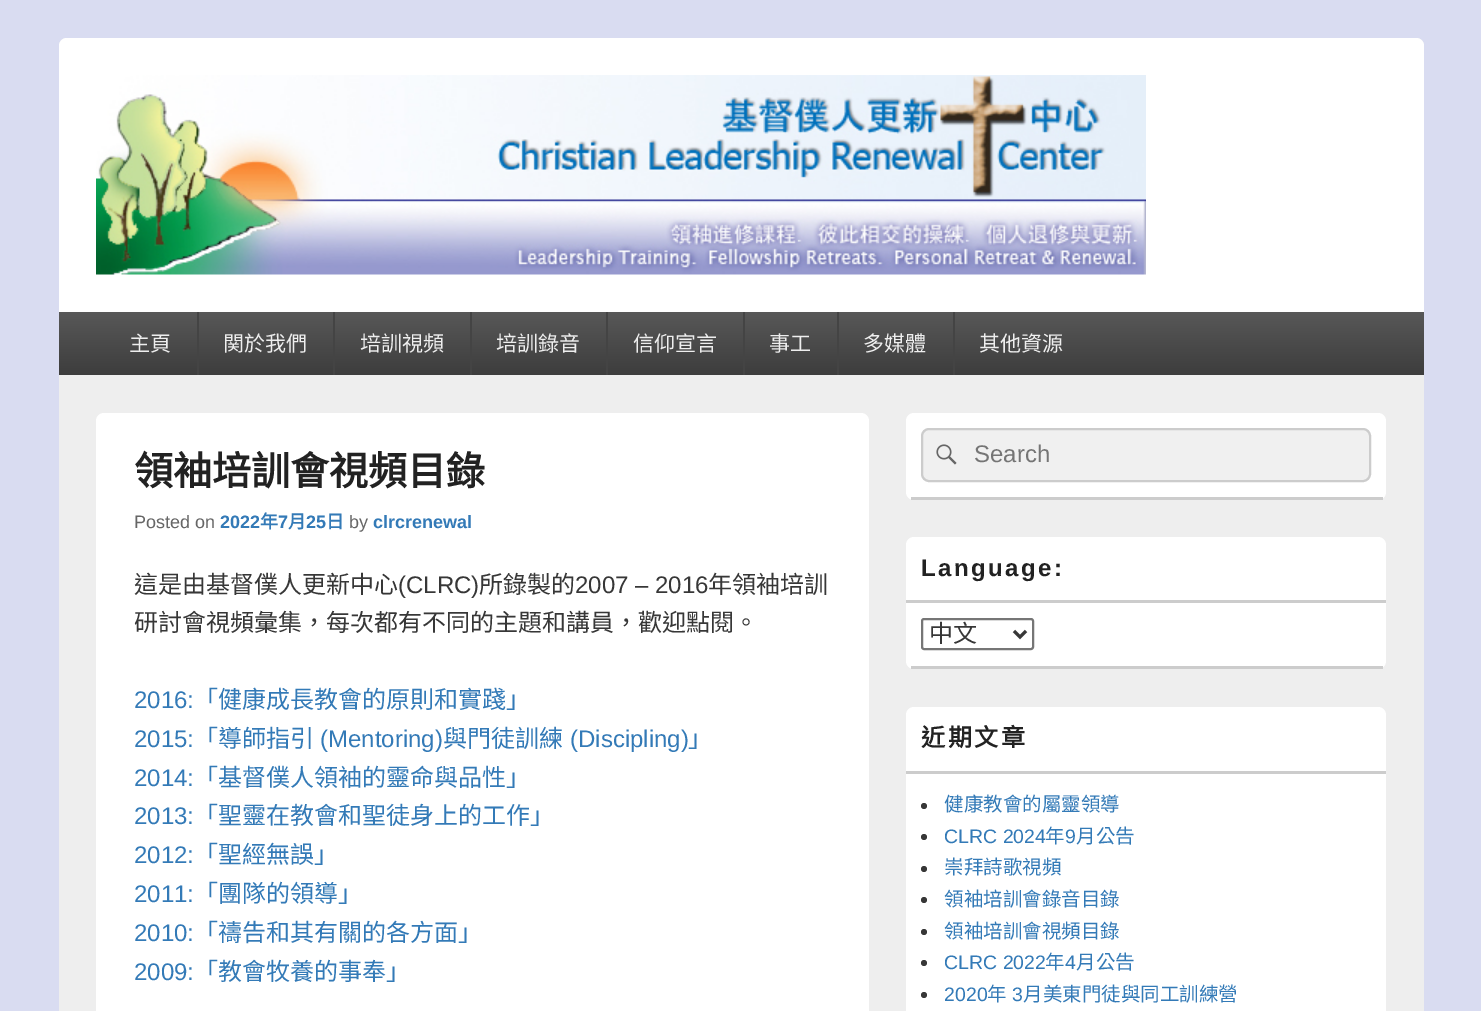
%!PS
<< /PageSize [1481 1011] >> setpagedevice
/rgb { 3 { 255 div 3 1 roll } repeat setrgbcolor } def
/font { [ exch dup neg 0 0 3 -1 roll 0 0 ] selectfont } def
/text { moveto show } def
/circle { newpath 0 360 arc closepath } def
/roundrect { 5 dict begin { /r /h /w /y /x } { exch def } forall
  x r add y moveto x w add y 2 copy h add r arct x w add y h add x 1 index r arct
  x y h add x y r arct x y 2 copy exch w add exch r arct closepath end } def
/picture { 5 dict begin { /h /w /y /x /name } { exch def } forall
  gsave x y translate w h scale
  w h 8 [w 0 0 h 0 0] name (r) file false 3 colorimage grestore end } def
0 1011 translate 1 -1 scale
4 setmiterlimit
217 220 241 rgb
0 0 1481 1011 rectfill
238 238 238 rgb
59 38 1365 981 8 roundrect fill
255 255 255 rgb
67 38 moveto 1349 0 rlineto 4.5 0 8 3.5 8 8 rcurveto 0 329 rlineto -1365 0 rlineto 0 -329 rlineto 0 -4.5 3.5 -8 8 -8 rcurveto closepath fill
(img_01.rgb) 96 75 1050 200 picture
gsave 59 312 moveto 1365 0 rlineto 0 63 rlineto -1365 0 rlineto closepath clip newpath
<< /ShadingType 2 /ColorSpace /DeviceRGB /Coords [741 312 741 375] /Extend [true true] /Function << /FunctionType 2 /Domain [0 1] /C0 [0.345 0.345 0.345] /C1 [0.239 0.239 0.239] /N 1 >> >> shfill grestore
68 68 68 rgb
197 312 2 63 rectfill
333 312 2 63 rectfill
470 312 2 63 rectfill
606 312 2 63 rectfill
743 312 2 63 rectfill
837 312 2 63 rectfill
953 312 2 63 rectfill
255 255 255 rgb
96 413 773 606 8 roundrect fill
906 413 480 87 8 roundrect fill
204 204 204 rgb
911 497 472 3 rectfill
240 240 240 rgb
922 429 448 52 7 roundrect gsave fill grestore
204 204 204 rgb
2 setlinewidth
stroke
(img_02.rgb) 936 444 21 21 picture
255 255 255 rgb
906 537 480 132 8 roundrect fill
204 204 204 rgb
911 666 472 3 rectfill
906 600 480 3 rectfill
118 118 118 rgb
922 619 111 30 2 roundrect stroke
55 55 55 rgb
3 setlinewidth
1014 631 moveto 6 6 rlineto 6 -6 rlineto stroke
255 255 255 rgb
906 707 480 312 8 roundrect fill
204 204 204 rgb
906 771 480 3 rectfill
55 55 55 rgb
924 806 3 circle fill
924 837 3 circle fill
924 869 3 circle fill
924 900 3 circle fill
924 932 3 circle fill
924 963 3 circle fill
924 995 3 circle fill
/NotoSansCJKTC-Regular 21 font
238 238 238 rgb
(主頁) 129 351 text
(関於我們) 223 351 text
(培訓視頻) 360 351 text
(培訓錄音) 496 351 text
(信仰宣言) 633 351 text
(事工) 769 351 text
(多媒體) 863 351 text
(其他資源) 979 351 text
/NotoSansCJKTC-Bold 39 font
34 34 34 rgb
(領袖培訓會視頻目錄) 134 485 text
/LiberationSans-Regular 18 font
102 102 102 rgb
(Posted on) 134 528 text
/LiberationSans-Bold 18 font
51 122 183 rgb
(2022) 220 528 text
/NotoSansCJKTC-Bold 18 font
(年) 260 528 text
/LiberationSans-Bold 18 font
(7) 278 528 text
/NotoSansCJKTC-Bold 18 font
(月) 288 528 text
/LiberationSans-Bold 18 font
(25) 306 528 text
/NotoSansCJKTC-Bold 18 font
(日) 326 528 text
/LiberationSans-Regular 18 font
102 102 102 rgb
(by) 349 528 text
/LiberationSans-Bold 18 font
51 122 183 rgb
(clrcrenewal) 373 528 text
/NotoSansCJKTC-Regular 24 font
55 55 55 rgb
(這是由基督僕人更新中心) 134 593 text
/LiberationSans-Regular 24 font
(\(CLRC\)) 398 593 text
/NotoSansCJKTC-Regular 24 font
(所錄製的) 479 593 text
/LiberationSans-Regular 24 font
(2007 – 2016) 575 593 text
/NotoSansCJKTC-Regular 24 font
(年領袖培訓) 708 593 text
(研討會視頻彙集，每次都有不同的主題和講員，歡迎點閱。) 134 631 text
/LiberationSans-Regular 24 font
51 122 183 rgb
(2016:) 134 708 text
/NotoSansCJKTC-Regular 24 font
(「健康成長教會的原則和實踐」) 194 708 text
/LiberationSans-Regular 24 font
(2015:) 134 747 text
/NotoSansCJKTC-Regular 24 font
(「導師指引) 194 747 text
/LiberationSans-Regular 24 font
(\(Mentoring\)) 320 747 text
/NotoSansCJKTC-Regular 24 font
(與門徒訓練) 443 747 text
/LiberationSans-Regular 24 font
(\(Discipling\)) 570 747 text
/NotoSansCJKTC-Regular 24 font
(」) 688 747 text
/LiberationSans-Regular 24 font
(2014:) 134 786 text
/NotoSansCJKTC-Regular 24 font
(「基督僕人領袖的靈命與品性」) 194 786 text
/LiberationSans-Regular 24 font
(2013:) 134 824 text
/NotoSansCJKTC-Regular 24 font
(「聖靈在教會和聖徒身上的工作」) 194 824 text
/LiberationSans-Regular 24 font
(2012:) 134 863 text
/NotoSansCJKTC-Regular 24 font
(「聖經無誤」) 194 863 text
/LiberationSans-Regular 24 font
(2011:) 134 902 text
/NotoSansCJKTC-Regular 24 font
(「團隊的領導」) 194 902 text
/LiberationSans-Regular 24 font
(2010:) 134 941 text
/NotoSansCJKTC-Regular 24 font
(「禱告和其有關的各方面」) 194 941 text
/LiberationSans-Regular 24 font
(2009:) 134 980 text
/NotoSansCJKTC-Regular 24 font
(「教會牧養的事奉」) 194 980 text
/LiberationSans-Regular 24 font
117 117 117 rgb
(Search) 974 462 text
/LiberationSans-Bold 24 font
34 34 34 rgb
921 576 moveto 2.5 0 (Language:) ashow
/NotoSansCJKTC-Regular 24 font
55 55 55 rgb
(中文) 929 642 text
/NotoSansCJKTC-Bold 24 font
34 34 34 rgb
921 746 moveto 2.5 0 (近期文章) ashow
/NotoSansCJKTC-Regular 19.5 font
51 122 183 rgb
(健康教會的屬靈領導) 944 811 text
/LiberationSans-Regular 19.5 font
(CLRC 2024) 944 843 text
/NotoSansCJKTC-Regular 19.5 font
(年) 1045 843 text
/LiberationSans-Regular 19.5 font
(9) 1065 843 text
/NotoSansCJKTC-Regular 19.5 font
(月公告) 1076 843 text
(崇拜詩歌視頻) 944 874 text
(領袖培訓會錄音目錄) 944 906 text
(領袖培訓會視頻目錄) 944 938 text
/LiberationSans-Regular 19.5 font
(CLRC 2022) 944 969 text
/NotoSansCJKTC-Regular 19.5 font
(年) 1045 969 text
/LiberationSans-Regular 19.5 font
(4) 1065 969 text
/NotoSansCJKTC-Regular 19.5 font
(月公告) 1076 969 text
/LiberationSans-Regular 19.5 font
(2020) 944 1001 text
/NotoSansCJKTC-Regular 19.5 font
(年) 987 1001 text
/LiberationSans-Regular 19.5 font
(3) 1012 1001 text
/NotoSansCJKTC-Regular 19.5 font
(月美東門徒與同工訓練營) 1023 1001 text
showpage
